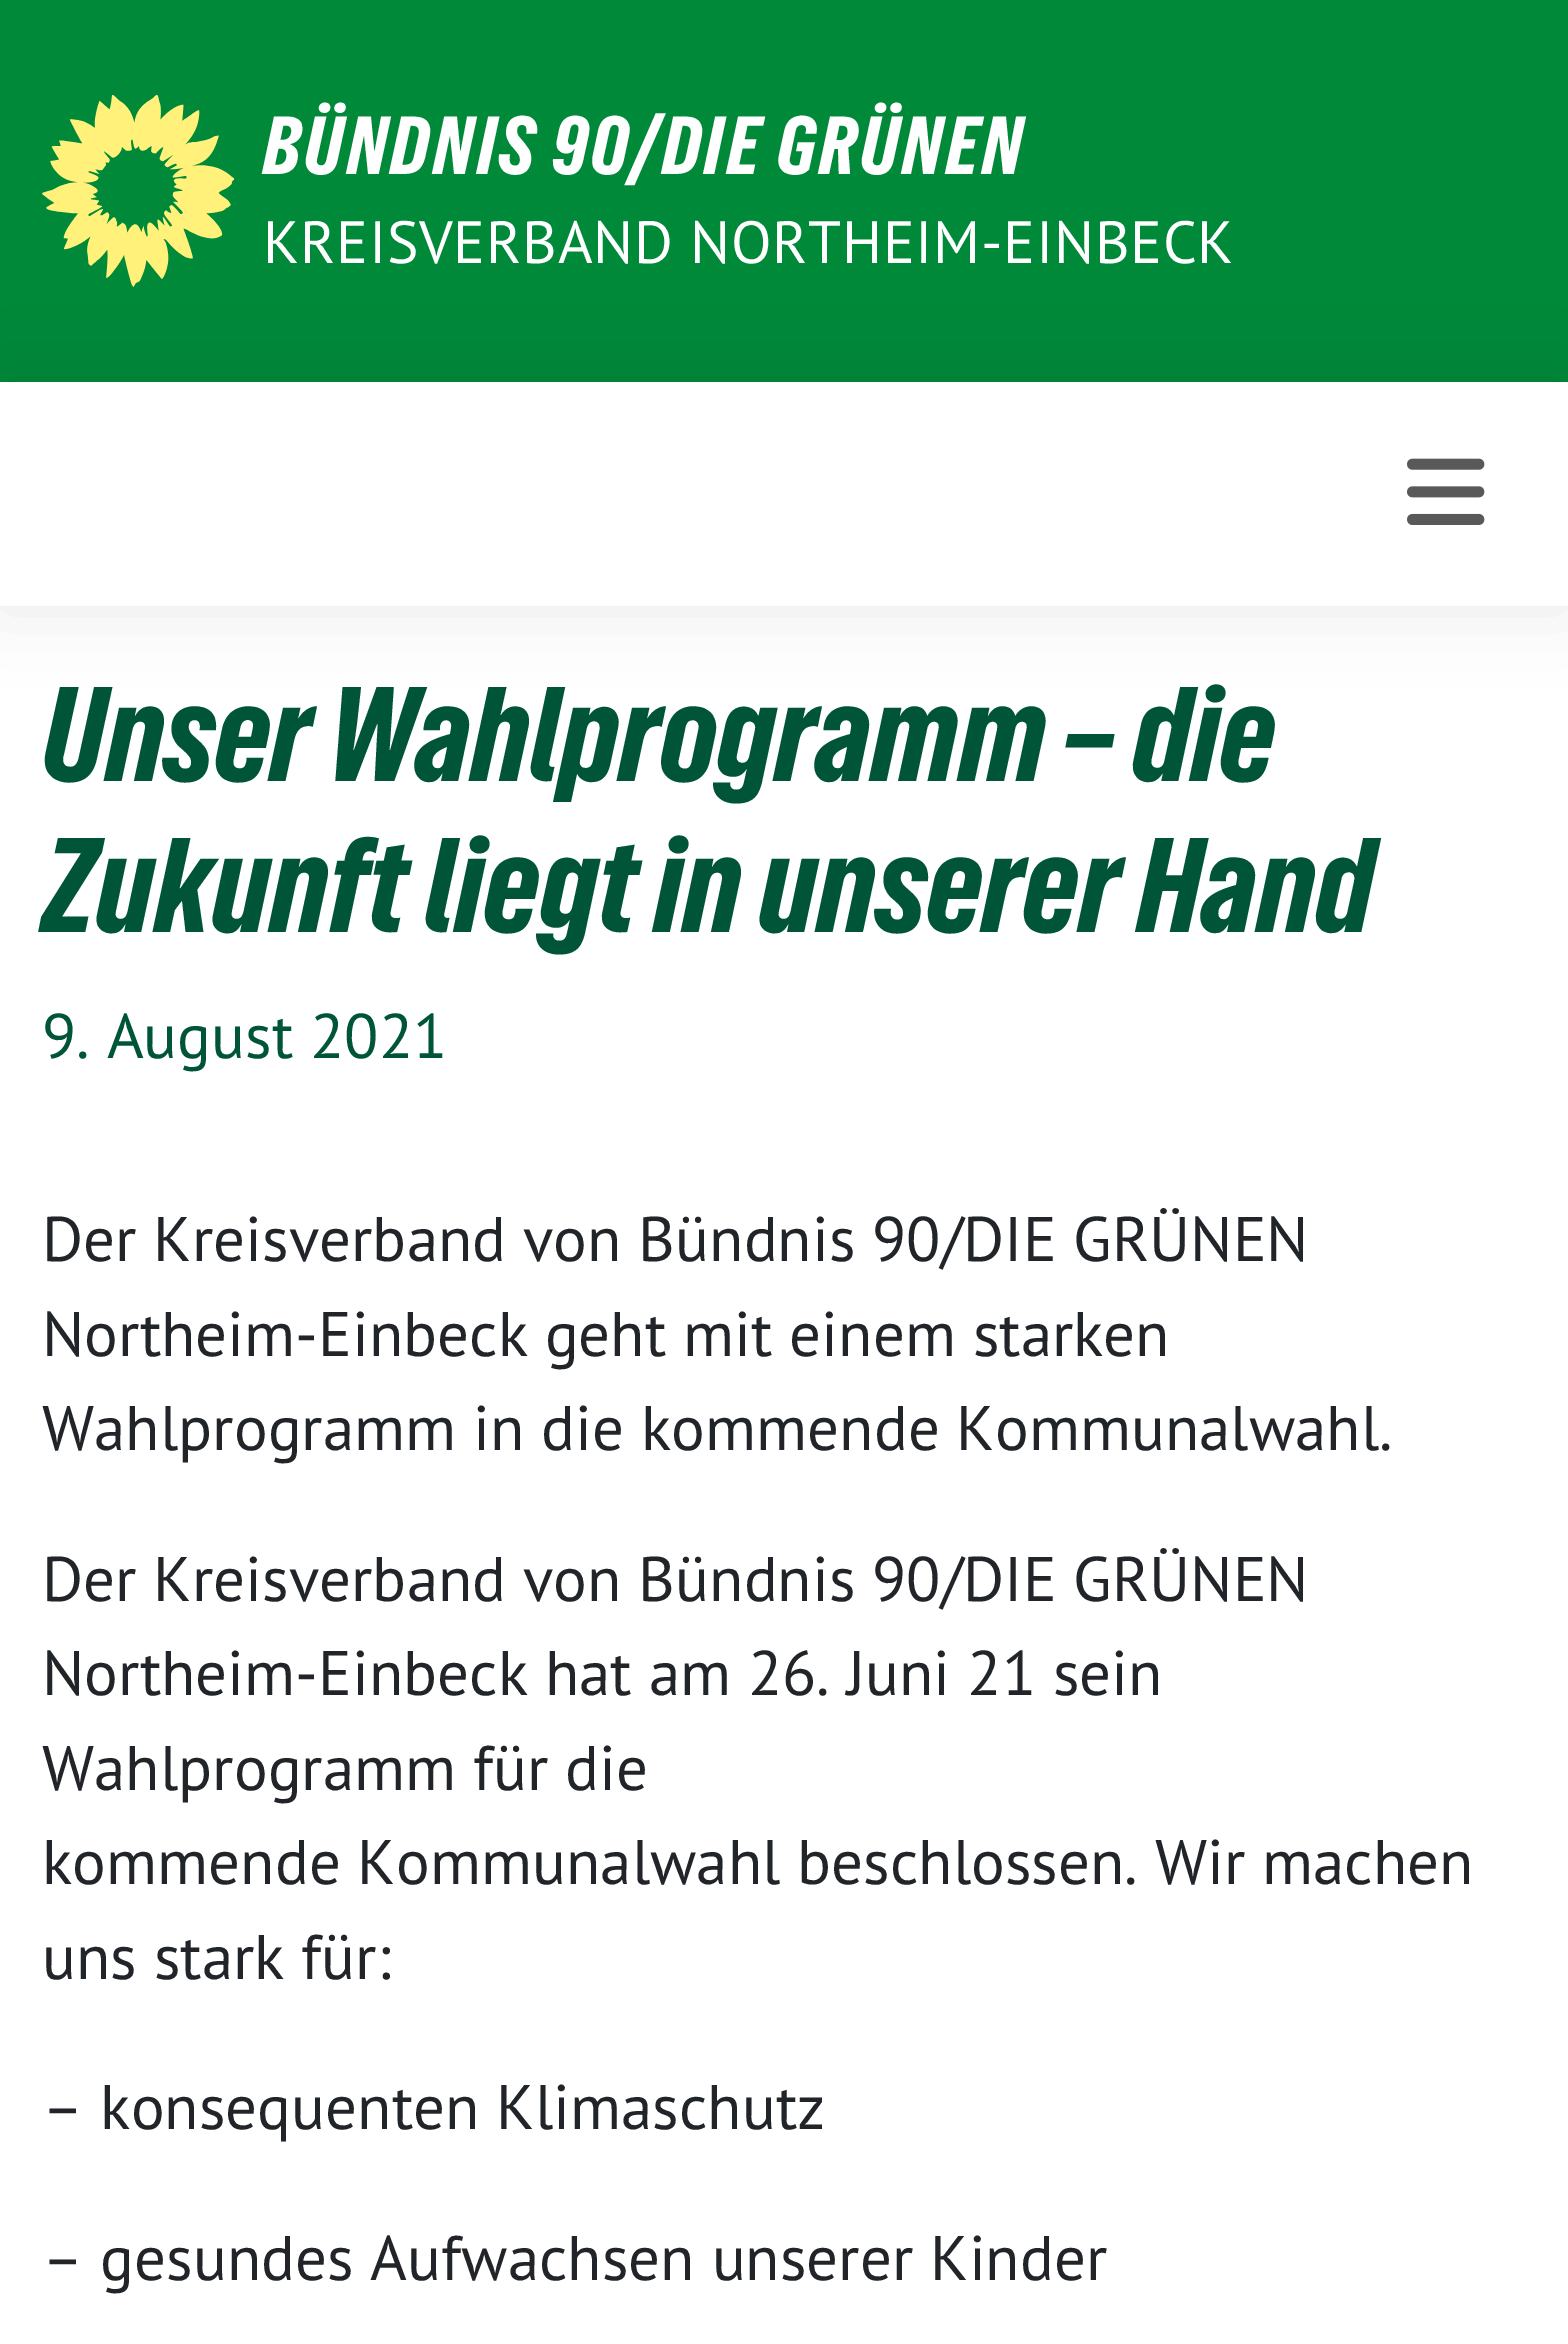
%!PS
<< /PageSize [1568 2344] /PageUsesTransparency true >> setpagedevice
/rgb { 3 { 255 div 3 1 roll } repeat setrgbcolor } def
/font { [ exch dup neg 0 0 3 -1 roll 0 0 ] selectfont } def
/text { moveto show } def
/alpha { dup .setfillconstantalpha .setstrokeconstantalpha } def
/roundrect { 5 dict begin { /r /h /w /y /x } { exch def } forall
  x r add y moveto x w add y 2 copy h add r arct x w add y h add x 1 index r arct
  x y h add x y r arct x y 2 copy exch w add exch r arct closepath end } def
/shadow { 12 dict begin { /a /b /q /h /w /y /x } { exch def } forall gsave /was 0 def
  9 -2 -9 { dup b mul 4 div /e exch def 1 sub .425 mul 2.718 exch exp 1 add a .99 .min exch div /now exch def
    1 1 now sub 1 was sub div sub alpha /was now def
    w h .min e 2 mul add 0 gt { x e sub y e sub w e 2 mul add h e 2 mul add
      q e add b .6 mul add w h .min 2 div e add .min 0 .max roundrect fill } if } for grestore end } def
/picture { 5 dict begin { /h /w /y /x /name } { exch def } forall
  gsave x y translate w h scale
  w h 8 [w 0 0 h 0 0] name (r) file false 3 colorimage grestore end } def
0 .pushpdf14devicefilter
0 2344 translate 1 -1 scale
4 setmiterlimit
255 255 255 rgb
0 0 1568 2344 rectfill
0 137 57 rgb
0 0 1568 382 rectfill
(img_01.rgb) 42 95 193 192 picture
0 0 0 rgb
0 385 1568 224 0 35 0.08 shadow
255 255 255 rgb
0 382 1568 224 rectfill
(img_02.rgb) 1407 458 78 67 picture
/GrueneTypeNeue-Regular 77 font
263 174 moveto 3.5 0 (BÜNDNIS 90/DIE GRÜNEN) ashow
/PTSans-Regular 59.5 font
263 263 moveto 0.7 0 (KREISVERBAND NORTHEIM-EINBECK) ashow
/GrueneTypeNeue-Regular 126 font
0 84 55 rgb
(Unser Wahlprogramm – die) 42 781 text
(Zukunft liegt in unserer Hand) 42 932 text
/PTSans-Regular 63 font
(9. August 2021) 42 1058 text
33 37 41 rgb
(Der Kreisverband von Bündnis 90/DIE GRÜNEN) 42 1261 text
(Northeim-Einbeck geht mit einem starken) 42 1356 text
(Wahlprogramm in die kommende Kommunalwahl.) 42 1450 text
(Der Kreisverband von Bündnis 90/DIE GRÜNEN) 42 1601 text
(Northeim-Einbeck hat am 26. Juni 21 sein) 42 1695 text
(Wahlprogramm für die) 42 1790 text
(kommende Kommunalwahl beschlossen. Wir machen) 42 1884 text
(uns stark für:) 42 1979 text
(– konsequenten Klimaschutz) 42 2129 text
(– gesundes Aufwachsen unserer Kinder) 42 2280 text
.poppdf14devicefilter showpage
